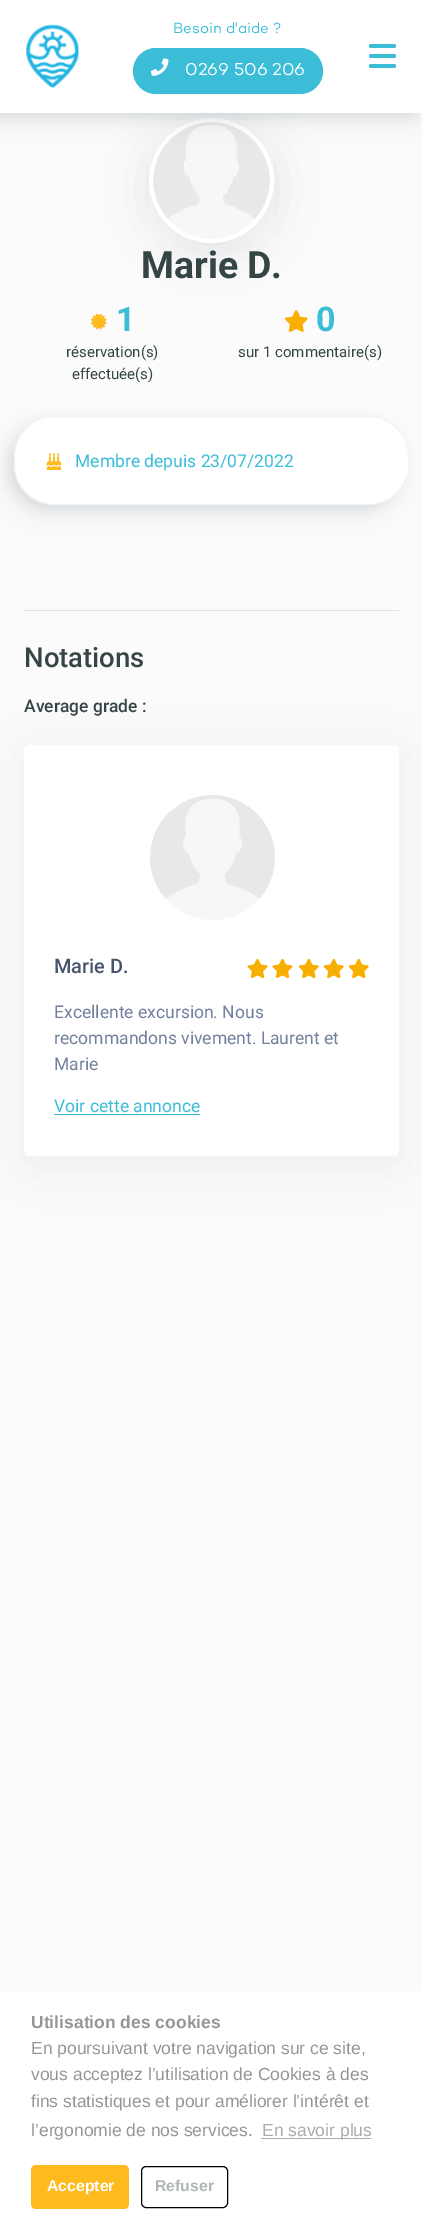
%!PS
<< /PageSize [422 2226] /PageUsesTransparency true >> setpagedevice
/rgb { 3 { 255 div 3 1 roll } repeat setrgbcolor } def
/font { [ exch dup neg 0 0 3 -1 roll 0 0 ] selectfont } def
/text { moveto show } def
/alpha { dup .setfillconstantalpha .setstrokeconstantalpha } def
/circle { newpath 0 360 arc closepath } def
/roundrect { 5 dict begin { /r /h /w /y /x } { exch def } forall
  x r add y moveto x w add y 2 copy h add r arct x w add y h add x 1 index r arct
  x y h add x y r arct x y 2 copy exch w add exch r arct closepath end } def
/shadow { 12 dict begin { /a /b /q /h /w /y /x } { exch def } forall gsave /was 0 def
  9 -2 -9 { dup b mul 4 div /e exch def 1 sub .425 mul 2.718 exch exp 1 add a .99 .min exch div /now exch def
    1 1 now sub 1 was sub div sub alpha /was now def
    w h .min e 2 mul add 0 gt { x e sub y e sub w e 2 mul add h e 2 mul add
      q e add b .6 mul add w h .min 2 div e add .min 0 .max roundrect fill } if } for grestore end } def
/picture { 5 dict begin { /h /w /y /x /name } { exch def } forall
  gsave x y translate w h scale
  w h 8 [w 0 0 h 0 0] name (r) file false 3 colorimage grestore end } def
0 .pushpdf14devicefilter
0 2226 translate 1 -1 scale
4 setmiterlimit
251 251 251 rgb
0 0 422 2226 rectfill
(img_04.rgb) 91 314 16 16 picture
(img_05.rgb) 285 310 23 22 picture
72 84 105 rgb
150 126 125 125 62.5 22 0.15 shadow
(img_03.rgb) 149 121 125 121 picture
255 255 255 rgb
4 setlinewidth
211.5 180.5 60.5 circle stroke
67 86 100 rgb
-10 10 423 113 0 10 0.08 shadow
-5 5 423 113 0 5 0.1 shadow
255 255 255 rgb
0 0 422 113 rectfill
(img_01.rgb) 26 24 54 64 picture
59 189 215 rgb
133 48 190 46 23 roundrect fill
(img_02.rgb) 150 58 19 18 picture
369 44 27 4 2 roundrect fill
369 54 27 4 2 roundrect fill
369 64 27 4 2 roundrect fill
67 86 100 rgb
4 426 395 89 40 10 0.08 shadow
9 421 395 89 40 5 0.1 shadow
255 255 255 rgb
14.5 416.5 394 88 39.5 roundrect gsave fill grestore
240 244 247 rgb
1 setlinewidth
stroke
(img_06.rgb) 46 453 15 17 picture
226 226 226 rgb
24 610 375 1 rectfill
72 84 105 rgb
25 754 375 411 6 22 0.07 shadow
255 255 255 rgb
24 745 375 411 6 roundrect fill
(img_07.rgb) 150 795 125 125 picture
(img_08.rgb) 247 958 21 21 picture
(img_08.rgb) 272 958 21 21 picture
(img_09.rgb) 298 958 21 21 picture
(img_09.rgb) 323 958 21 21 picture
(img_09.rgb) 348 958 21 21 picture
59 189 215 rgb
54 1114 146 1 rectfill
255 255 255 rgb
0 1991 422 235 rectfill
169 170 172 rgb
261 2138 110 1 rectfill
255 187 30 rgb
31 2165 98 44 5 roundrect fill
0 0 0 rgb
141.5 2166.5 86 41 4.5 roundrect stroke
/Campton-Regular 15 font
59 189 215 rgb
(Besoin d'aide ?) 173 33 text
/Campton-Regular 17.5 font
255 255 255 rgb
(0269 506 206) 185 75 text
/Roboto-Bold 37.5 font
53 69 69 rgb
(Marie D.) 141 278 text
/Roboto-Bold 34 font
59 189 215 rgb
(1) 116 331 text
/Roboto-Regular 15 font
53 69 69 rgb
(réservation\(s\)) 66 357 text
(effectuée\(s\)) 72 379 text
/Roboto-Bold 34 font
59 189 215 rgb
(0) 316 331 text
/Roboto-Regular 15 font
53 69 69 rgb
(sur 1 commentaire\(s\)) 238 357 text
/Roboto-Regular 17.5 font
59 189 215 rgb
(Membre depuis 23/07/2022) 75 467 text
/Roboto-Medium 27.5 font
53 69 69 rgb
(Notations) 24 667 text
/Roboto-Medium 17.5 font
(Average grade :) 24 712 text
/Roboto-Medium 20 font
72 84 105 rgb
(Marie D.) 54 973 text
/Roboto-Regular 17.5 font
114 128 157 rgb
(Excellente excursion. Nous) 54 1018 text
(recommandons vivement. Laurent et) 54 1044 text
(Marie) 54 1070 text
59 189 215 rgb
(Voir cette annonce) 54 1112 text
/LiberationSans-Bold 17.5 font
148 149 151 rgb
(Utilisation des cookies) 31 2028 text
/LiberationSans-Regular 17.5 font
(En poursuivant votre navigation sur ce site,) 31 2054 text
(vous acceptez l’utilisation de Cookies à des) 31 2080 text
(fins statistiques et pour améliorer l’intérêt et) 31 2107 text
(l’ergonomie de nos services.) 31 2136 text
169 170 172 rgb
(En savoir plus) 262 2136 text
/LiberationSans-Bold 15.75 font
255 255 255 rgb
(Accepter) 47 2191 text
176 182 182 rgb
(Refuser) 155 2191 text
.poppdf14devicefilter showpage
